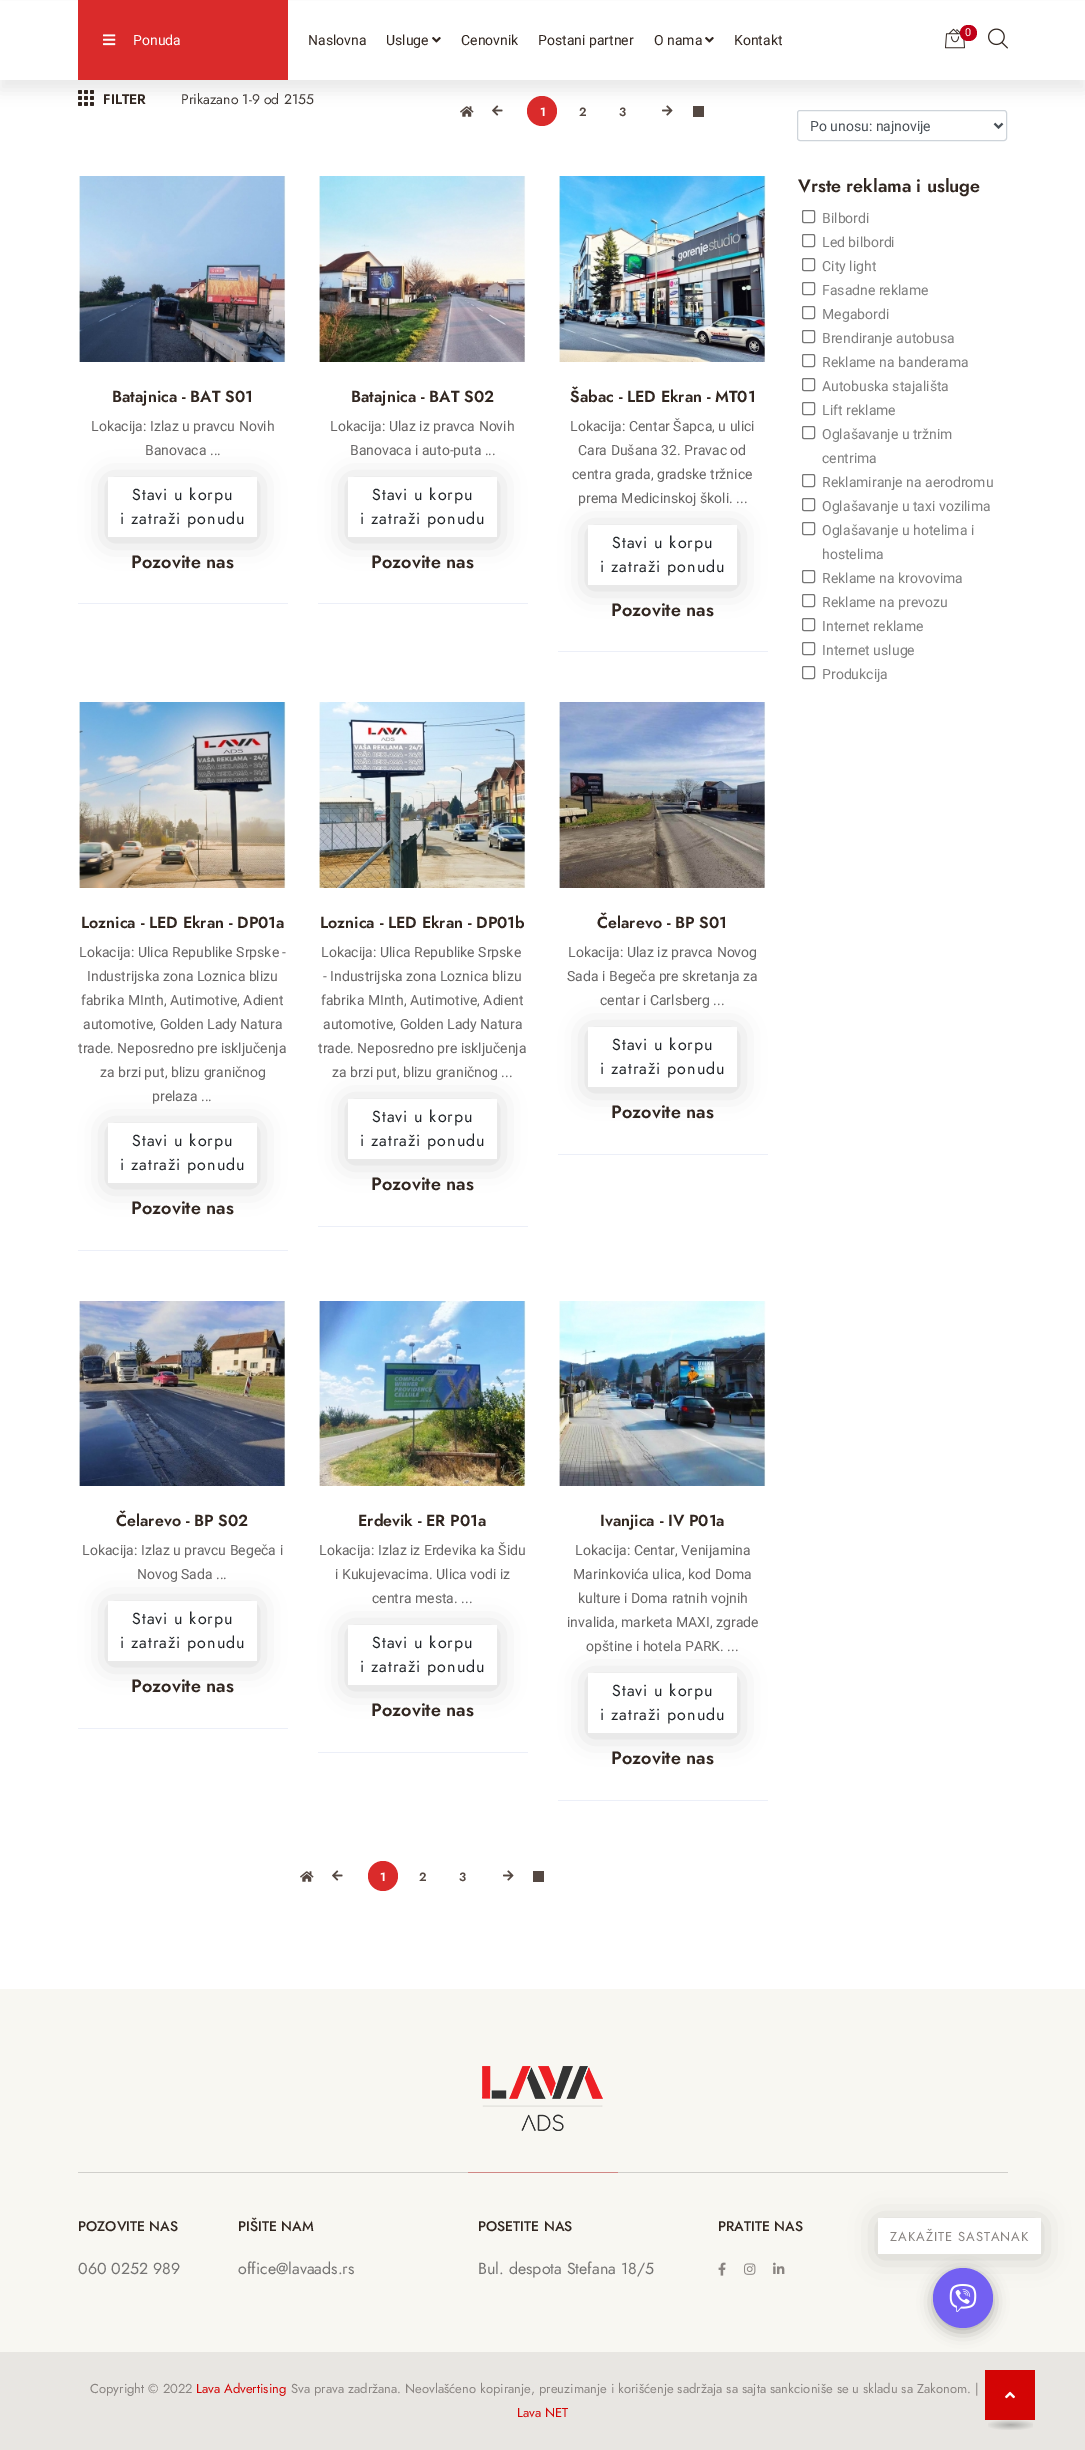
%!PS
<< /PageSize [1085 2450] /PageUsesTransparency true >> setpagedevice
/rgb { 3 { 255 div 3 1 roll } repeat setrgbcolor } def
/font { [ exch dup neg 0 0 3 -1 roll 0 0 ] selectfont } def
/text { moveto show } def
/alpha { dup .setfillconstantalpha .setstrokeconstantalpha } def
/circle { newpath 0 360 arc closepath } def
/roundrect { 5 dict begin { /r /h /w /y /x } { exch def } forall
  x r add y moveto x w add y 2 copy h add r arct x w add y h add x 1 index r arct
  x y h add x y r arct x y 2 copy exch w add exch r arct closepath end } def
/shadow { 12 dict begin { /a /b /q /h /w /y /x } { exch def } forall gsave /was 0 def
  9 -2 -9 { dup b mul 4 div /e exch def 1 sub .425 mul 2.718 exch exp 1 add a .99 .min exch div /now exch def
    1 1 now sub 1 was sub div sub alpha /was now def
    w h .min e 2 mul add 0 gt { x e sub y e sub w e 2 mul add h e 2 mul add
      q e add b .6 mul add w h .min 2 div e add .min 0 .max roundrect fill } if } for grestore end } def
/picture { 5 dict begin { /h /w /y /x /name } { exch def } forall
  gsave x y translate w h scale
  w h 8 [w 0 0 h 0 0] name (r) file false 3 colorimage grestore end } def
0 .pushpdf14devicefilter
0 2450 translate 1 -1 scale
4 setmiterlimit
255 255 255 rgb
0 0 1085 2450 rectfill
(img_05.rgb) 78 90 16 16 picture
(img_06.rgb) 460 106 14 11 picture
(img_07.rgb) 492 105 11 11 picture
218 43 43 rgb
542 111 15 circle fill
(img_08.rgb) 662 105 11 11 picture
84 72 66 rgb
693 106 11 11 rectfill
206 212 218 rgb
797.5 110.5 209 30 2.5 roundrect stroke
25 25 25 rgb
0 10 1085 80 0 7.5 0.1 shadow
255 255 255 rgb
0 1 1085 79 rectfill
(img_01.rgb) 945 28 20 21 picture
191 0 25 rgb
960 25 17 16 8 roundrect fill
(img_02.rgb) 988 28 20 21 picture
218 43 43 rgb
78 0 210 80 rectfill
(img_03.rgb) 103 34 13 12 picture
(img_04.rgb) 432 37 9 6 picture
(img_04.rgb) 705 37 9 6 picture
73 80 87 rgb
2 setlinewidth
994.5 123.5 moveto 4 4 rlineto 4 -4 rlineto stroke
(img_09.rgb) 79 176 207 186 picture
gsave
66 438 moveto 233 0 rlineto 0 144 rlineto -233 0 rlineto closepath 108 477 moveto 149 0 rlineto 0 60 rlineto -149 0 rlineto closepath eoclip newpath
0 0 0 rgb
108 480 149 60 0 13.5 0.17 shadow
grestore
236 239 248 rgb
78 603 210 1 rectfill
(img_10.rgb) 319 176 207 186 picture
gsave
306 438 moveto 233 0 rlineto 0 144 rlineto -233 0 rlineto closepath 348 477 moveto 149 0 rlineto 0 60 rlineto -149 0 rlineto closepath eoclip newpath
0 0 0 rgb
348 480 149 60 0 13.5 0.17 shadow
grestore
318 603 210 1 rectfill
(img_11.rgb) 559 176 207 186 picture
gsave
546 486 moveto 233 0 rlineto 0 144 rlineto -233 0 rlineto closepath 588 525 moveto 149 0 rlineto 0 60 rlineto -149 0 rlineto closepath eoclip newpath
0 0 0 rgb
588 528 149 60 0 13.5 0.17 shadow
grestore
558 651 210 1 rectfill
(img_12.rgb) 79 702 207 186 picture
gsave
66 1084 moveto 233 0 rlineto 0 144 rlineto -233 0 rlineto closepath 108 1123 moveto 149 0 rlineto 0 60 rlineto -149 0 rlineto closepath eoclip newpath
0 0 0 rgb
108 1126 149 60 0 13.5 0.17 shadow
grestore
78 1250 210 1 rectfill
(img_13.rgb) 319 702 207 186 picture
gsave
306 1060 moveto 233 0 rlineto 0 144 rlineto -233 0 rlineto closepath 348 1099 moveto 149 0 rlineto 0 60 rlineto -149 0 rlineto closepath eoclip newpath
0 0 0 rgb
348 1102 149 60 0 13.5 0.17 shadow
grestore
318 1226 210 1 rectfill
(img_14.rgb) 559 702 207 186 picture
gsave
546 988 moveto 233 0 rlineto 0 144 rlineto -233 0 rlineto closepath 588 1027 moveto 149 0 rlineto 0 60 rlineto -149 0 rlineto closepath eoclip newpath
0 0 0 rgb
588 1030 149 60 0 13.5 0.17 shadow
grestore
558 1154 210 1 rectfill
(img_15.rgb) 79 1301 207 185 picture
gsave
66 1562 moveto 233 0 rlineto 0 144 rlineto -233 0 rlineto closepath 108 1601 moveto 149 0 rlineto 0 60 rlineto -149 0 rlineto closepath eoclip newpath
0 0 0 rgb
108 1604 149 60 0 13.5 0.17 shadow
grestore
78 1728 210 1 rectfill
(img_16.rgb) 319 1301 207 185 picture
gsave
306 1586 moveto 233 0 rlineto 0 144 rlineto -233 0 rlineto closepath 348 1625 moveto 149 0 rlineto 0 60 rlineto -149 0 rlineto closepath eoclip newpath
0 0 0 rgb
348 1628 149 60 0 13.5 0.17 shadow
grestore
318 1752 210 1 rectfill
(img_17.rgb) 559 1301 207 185 picture
gsave
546 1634 moveto 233 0 rlineto 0 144 rlineto -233 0 rlineto closepath 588 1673 moveto 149 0 rlineto 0 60 rlineto -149 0 rlineto closepath eoclip newpath
0 0 0 rgb
588 1676 149 60 0 13.5 0.17 shadow
grestore
558 1800 210 1 rectfill
(img_06.rgb) 300 1871 14 11 picture
(img_07.rgb) 332 1870 11 11 picture
218 43 43 rgb
383 1876 15 circle fill
(img_08.rgb) 503 1870 11 11 picture
84 72 66 rgb
533 1871 11 11 rectfill
118 118 118 rgb
1 setlinewidth
802.5 210.5 12 12 1.5 roundrect stroke
802.5 234.5 12 12 1.5 roundrect stroke
802.5 258.5 12 12 1.5 roundrect stroke
802.5 282.5 12 12 1.5 roundrect stroke
802.5 306.5 12 12 1.5 roundrect stroke
802.5 330.5 12 12 1.5 roundrect stroke
802.5 354.5 12 12 1.5 roundrect stroke
802.5 378.5 12 12 1.5 roundrect stroke
802.5 402.5 12 12 1.5 roundrect stroke
802.5 426.5 12 12 1.5 roundrect stroke
802.5 474.5 12 12 1.5 roundrect stroke
802.5 498.5 12 12 1.5 roundrect stroke
802.5 522.5 12 12 1.5 roundrect stroke
802.5 570.5 12 12 1.5 roundrect stroke
802.5 594.5 12 12 1.5 roundrect stroke
802.5 618.5 12 12 1.5 roundrect stroke
802.5 642.5 12 12 1.5 roundrect stroke
802.5 666.5 12 12 1.5 roundrect stroke
248 247 242 rgb
0 1989 1085 363 rectfill
208 207 203 rgb
78 2172 930 1 rectfill
(img_18.rgb) 482 2066 121 65 picture
209 136 134 rgb
468 2172 150 1 rectfill
(img_19.rgb) 718 2262 8 14 picture
(img_20.rgb) 744 2263 12 12 picture
(img_21.rgb) 773 2262 12 12 picture
0 0 0 rgb
878 2221 163 36 0 13.5 0.17 shadow
255 255 255 rgb
878 2218 163 36 rectfill
232 230 226 rgb
0 2352 1085 98 rectfill
0 0 0 rgb
933 2272 60 60 30 7.5 0.3 shadow
115 96 242 rgb
963 2298 30 circle fill
(img_22.rgb) 949 2284 28 28 picture
211 5 5 rgb
985 2370 50 50 rectfill
(img_23.rgb) 1005 2391 10 8 picture
gsave 988 2420 moveto 45 0 rlineto 0 10 rlineto -45 0 rlineto closepath clip newpath 1011 2425 translate 32 7.1 scale
<< /ShadingType 3 /ColorSpace /DeviceRGB /Coords [0 0 0 0 0 1] /Extend [true true] /Function << /FunctionType 3 /Domain [0 1] /Functions [<< /FunctionType 2 /Domain [0 1] /C0 [0.682 0.678 0.667] /C1 [0.91 0.902 0.886] /N 1 >> << /FunctionType 2 /Domain [0 1] /C0 [0.91 0.902 0.886] /C1 [0.91 0.902 0.886] /N 1 >>] /Bounds [0.8] /Encode [0 1 0 1] >> >> shfill grestore
/Roboto-Regular 11 font
255 255 255 rgb
(0) 965 36 text
/Roboto-Regular 14 font
(Ponuda) 133 45 text
49 38 32 rgb
(Naslovna) 308 45 text
(Usluge) 386 45 text
(Cenovnik) 461 45 text
(Postani partner) 538 45 text
(O nama) 654 45 text
(Kontakt) 734 45 text
/Jost-SemiBold 14 font
(FILTER) 103 104 text
/Jost-Regular 14 font
64 58 55 rgb
(Prikazano 1-9 od 2155) 181 104 text
/Jost-SemiBold 12 font
255 255 255 rgb
(1) 540 116 text
84 72 66 rgb
(2) 579 116 text
(3) 619 116 text
/Roboto-Regular 14 font
73 80 87 rgb
(Po unosu: najnovije) 810 131 text
/Jost-SemiBold 16 font
49 38 32 rgb
(Batajnica - BAT S01) 112 402 text
/Roboto-Regular 14 font
103 101 101 rgb
(Lokacija: Izlaz u pravcu Novih) 91 431 text
(Banovaca ...) 145 455 text
/Jost-Regular 16 font
33 37 41 rgb
132 500 moveto 1 0 (Stavi u korpu) ashow
120 524 moveto 1 0 (i zatraži ponudu) ashow
/Jost-SemiBold 18 font
49 38 32 rgb
(Pozovite nas) 131 568 text
/Jost-SemiBold 16 font
(Batajnica - BAT S02) 351 402 text
/Roboto-Regular 14 font
103 101 101 rgb
(Lokacija: Ulaz iz pravca Novih) 330 431 text
(Banovaca i auto-puta ...) 350 455 text
/Jost-Regular 16 font
33 37 41 rgb
372 500 moveto 1 0 (Stavi u korpu) ashow
360 524 moveto 1 0 (i zatraži ponudu) ashow
/Jost-SemiBold 18 font
49 38 32 rgb
(Pozovite nas) 371 568 text
/Jost-SemiBold 16 font
(Šabac - LED Ekran - MT01) 570 402 text
/Roboto-Regular 14 font
103 101 101 rgb
(Lokacija: Centar Šapca, u ulici) 570 431 text
(Cara Dušana 32. Pravac od) 578 455 text
(centra grada, gradske tržnice) 572 479 text
(prema Medicinskoj školi. ...) 578 503 text
/Jost-Regular 16 font
33 37 41 rgb
612 548 moveto 1 0 (Stavi u korpu) ashow
600 572 moveto 1 0 (i zatraži ponudu) ashow
/Jost-SemiBold 18 font
49 38 32 rgb
(Pozovite nas) 611 616 text
/Jost-SemiBold 16 font
(Loznica - LED Ekran - DP01a) 81 928 text
/Roboto-Regular 14 font
103 101 101 rgb
(Lokacija: Ulica Republike Srpske -) 79 957 text
(Industrijska zona Loznica blizu) 87 981 text
(fabrika MInth, Autimotive, Adient) 81 1005 text
(automotive, Golden Lady Natura) 83 1029 text
(trade. Neposredno pre isključenja) 78 1053 text
(za brzi put, blizu graničnog) 100 1077 text
(prelaza ...) 152 1101 text
/Jost-Regular 16 font
33 37 41 rgb
132 1146 moveto 1 0 (Stavi u korpu) ashow
120 1170 moveto 1 0 (i zatraži ponudu) ashow
/Jost-SemiBold 18 font
49 38 32 rgb
(Pozovite nas) 131 1214 text
/Jost-SemiBold 16 font
(Loznica - LED Ekran - DP01b) 320 928 text
/Roboto-Regular 14 font
103 101 101 rgb
(Lokacija: Ulica Republike Srpske) 321 957 text
(- Industrijska zona Loznica blizu) 323 981 text
(fabrika MInth, Autimotive, Adient) 321 1005 text
(automotive, Golden Lady Natura) 323 1029 text
(trade. Neposredno pre isključenja) 318 1053 text
(za brzi put, blizu graničnog ...) 332 1077 text
/Jost-Regular 16 font
33 37 41 rgb
372 1122 moveto 1 0 (Stavi u korpu) ashow
360 1146 moveto 1 0 (i zatraži ponudu) ashow
/Jost-SemiBold 18 font
49 38 32 rgb
(Pozovite nas) 371 1190 text
/Jost-SemiBold 16 font
(Čelarevo - BP S01) 597 928 text
/Roboto-Regular 14 font
103 101 101 rgb
(Lokacija: Ulaz iz pravca Novog) 568 957 text
(Sada i Begeča pre skretanja za) 567 981 text
(centar i Carlsberg ...) 600 1005 text
/Jost-Regular 16 font
33 37 41 rgb
612 1050 moveto 1 0 (Stavi u korpu) ashow
600 1074 moveto 1 0 (i zatraži ponudu) ashow
/Jost-SemiBold 18 font
49 38 32 rgb
(Pozovite nas) 611 1118 text
/Jost-SemiBold 16 font
(Čelarevo - BP S02) 116 1526 text
/Roboto-Regular 14 font
103 101 101 rgb
(Lokacija: Izlaz u pravcu Begeča i) 82 1555 text
(Novog Sada ...) 137 1579 text
/Jost-Regular 16 font
33 37 41 rgb
132 1624 moveto 1 0 (Stavi u korpu) ashow
120 1648 moveto 1 0 (i zatraži ponudu) ashow
/Jost-SemiBold 18 font
49 38 32 rgb
(Pozovite nas) 131 1692 text
/Jost-SemiBold 16 font
(Erdevik - ER P01a) 358 1526 text
/Roboto-Regular 14 font
103 101 101 rgb
(Lokacija: Izlaz iz Erdevika ka Šidu) 319 1555 text
(i Kukujevacima. Ulica vodi iz) 335 1579 text
(centra mesta. ...) 372 1603 text
/Jost-Regular 16 font
33 37 41 rgb
372 1648 moveto 1 0 (Stavi u korpu) ashow
360 1672 moveto 1 0 (i zatraži ponudu) ashow
/Jost-SemiBold 18 font
49 38 32 rgb
(Pozovite nas) 371 1716 text
/Jost-SemiBold 16 font
(Ivanjica - IV P01a) 600 1526 text
/Roboto-Regular 14 font
103 101 101 rgb
(Lokacija: Centar, Venijamina) 575 1555 text
(Marinkovića ulica, kod Doma) 573 1579 text
(kulture i Doma ratnih vojnih) 578 1603 text
(invalida, marketa MAXI, zgrade) 567 1627 text
(opštine i hotela PARK. ...) 586 1651 text
/Jost-Regular 16 font
33 37 41 rgb
612 1696 moveto 1 0 (Stavi u korpu) ashow
600 1720 moveto 1 0 (i zatraži ponudu) ashow
/Jost-SemiBold 18 font
49 38 32 rgb
(Pozovite nas) 611 1764 text
/Jost-SemiBold 12 font
255 255 255 rgb
(1) 380 1881 text
84 72 66 rgb
(2) 419 1881 text
(3) 459 1881 text
/Jost-SemiBold 18 font
49 38 32 rgb
(Vrste reklama i usluge) 798 192 text
/Roboto-Regular 14 font
126 126 126 rgb
(Bilbordi) 822 223 text
(Led bilbordi) 822 247 text
(City light) 822 271 text
(Fasadne reklame) 822 295 text
(Megabordi) 822 319 text
(Brendiranje autobusa) 822 343 text
(Reklame na banderama) 822 367 text
(Autobuska stajališta) 822 391 text
(Lift reklame) 822 415 text
(Oglašavanje u tržnim) 822 439 text
(centrima) 822 463 text
(Reklamiranje na aerodromu) 822 487 text
(Oglašavanje u taxi vozilima) 822 511 text
(Oglašavanje u hotelima i) 822 535 text
(hostelima) 822 559 text
(Reklame na krovovima) 822 583 text
(Reklame na prevozu) 822 607 text
(Internet reklame) 822 631 text
(Internet usluge) 822 655 text
(Produkcija) 822 679 text
/Jost-Medium 14 font
49 38 32 rgb
(POZOVITE NAS) 78 2231 text
/Jost-Regular 16 font
116 115 114 rgb
(060 0252 989) 78 2274 text
/Jost-Medium 14 font
49 38 32 rgb
(PIŠITE NAM) 238 2231 text
/Jost-Regular 16 font
116 115 114 rgb
(office@lavaads.rs) 238 2274 text
/Jost-Medium 14 font
49 38 32 rgb
(POSETITE NAS) 478 2231 text
/Jost-Regular 16 font
116 115 114 rgb
(Bul. despota Stefana 18/5) 478 2274 text
/Jost-Medium 14 font
49 38 32 rgb
(PRATITE NAS) 718 2231 text
/Jost-Regular 13 font
137 132 129 rgb
890 2241 moveto 1 0 (ZAKAŽITE SASTANAK) ashow
(Copyright © 2022) 90 2393 text
211 5 5 rgb
(Lava Advertising) 196 2393 text
137 132 129 rgb
(Sva prava zadržana. Neovlašćeno kopiranje, preuzimanje i korišćenje sadržaja sa sajta sankcioniše se u skladu sa Zakonom. |) 291 2393 text
211 5 5 rgb
(Lava NET) 517 2417 text
.poppdf14devicefilter showpage
